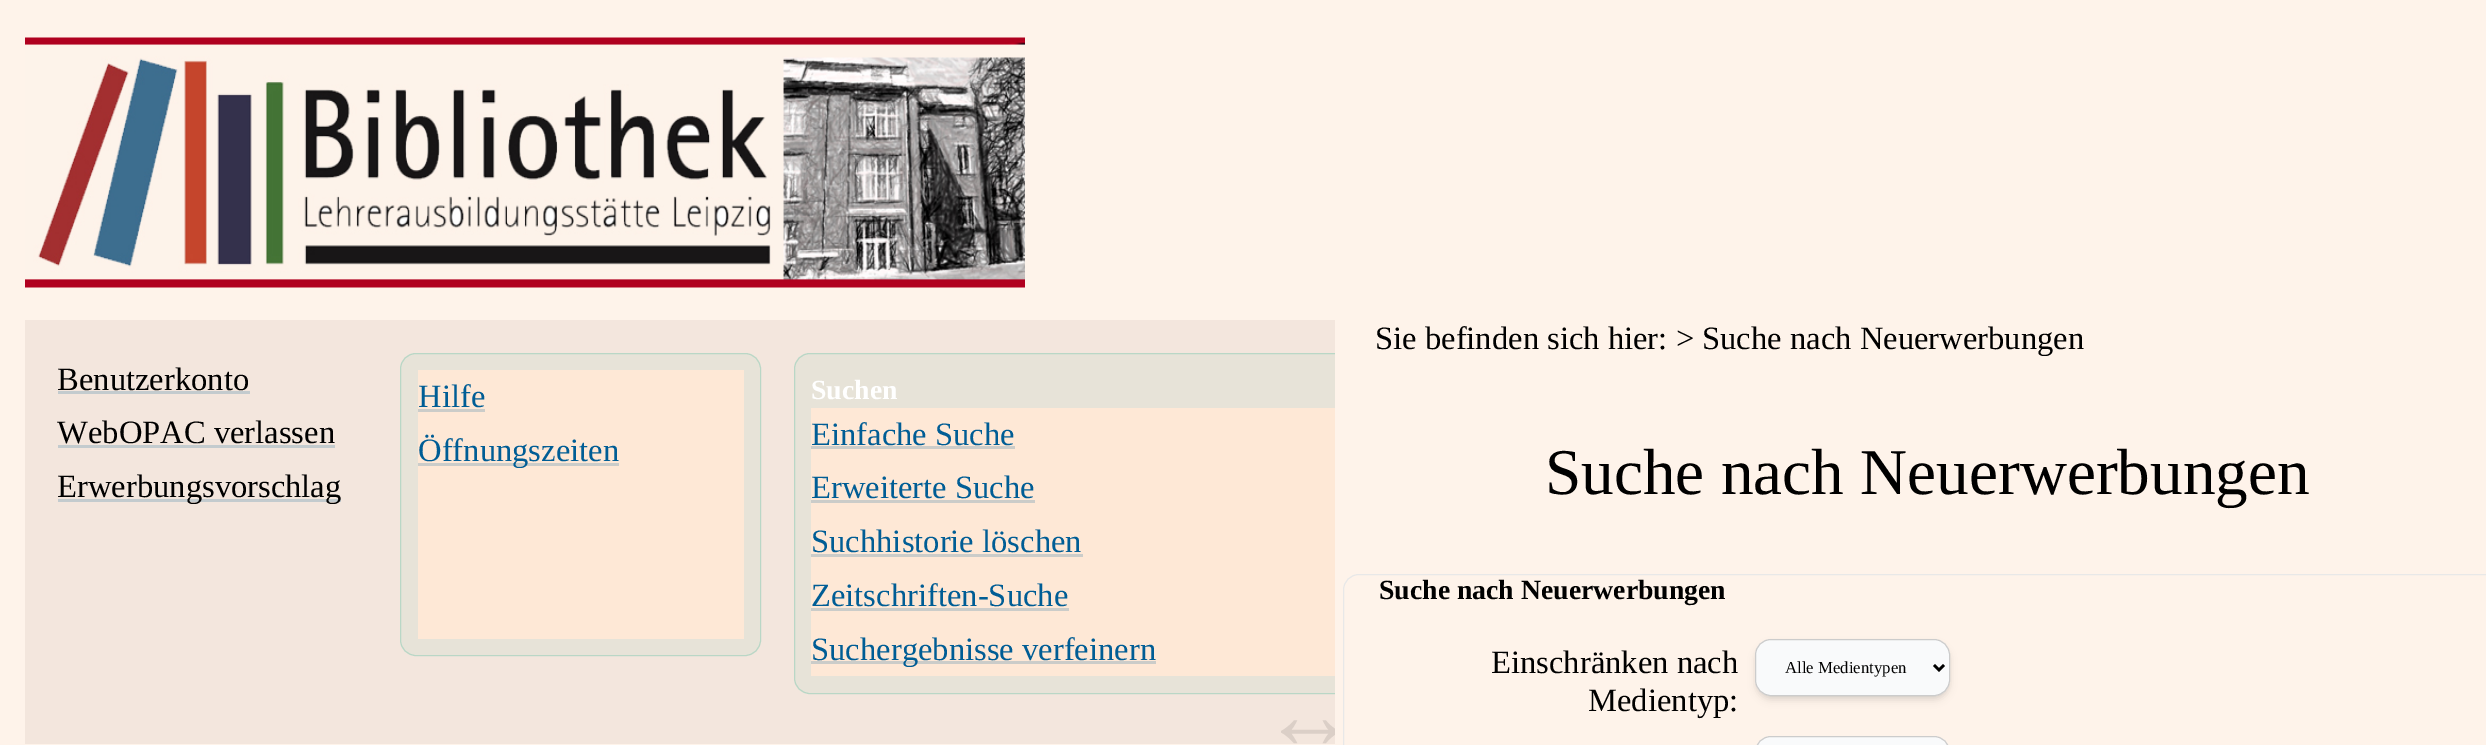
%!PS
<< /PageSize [2486 745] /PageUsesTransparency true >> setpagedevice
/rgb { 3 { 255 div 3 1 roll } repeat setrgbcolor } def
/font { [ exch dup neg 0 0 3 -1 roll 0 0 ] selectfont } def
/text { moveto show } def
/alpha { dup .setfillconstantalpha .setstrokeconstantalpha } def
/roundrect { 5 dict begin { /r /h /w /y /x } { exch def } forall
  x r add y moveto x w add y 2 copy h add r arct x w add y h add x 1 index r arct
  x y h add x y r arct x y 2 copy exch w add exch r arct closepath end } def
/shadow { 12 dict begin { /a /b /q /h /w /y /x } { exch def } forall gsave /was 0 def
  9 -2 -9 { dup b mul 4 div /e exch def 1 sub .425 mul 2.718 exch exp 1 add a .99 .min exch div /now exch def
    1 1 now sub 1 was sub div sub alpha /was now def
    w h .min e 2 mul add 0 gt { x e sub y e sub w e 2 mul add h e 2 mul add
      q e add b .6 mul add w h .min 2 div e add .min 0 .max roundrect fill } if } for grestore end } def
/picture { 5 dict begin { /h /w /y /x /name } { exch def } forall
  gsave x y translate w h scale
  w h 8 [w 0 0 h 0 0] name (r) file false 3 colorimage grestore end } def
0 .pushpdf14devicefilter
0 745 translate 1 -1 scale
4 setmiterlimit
254 243 234 rgb
0 0 2486 745 rectfill
(img_01.rgb) 25 37 1000 251 picture
243 230 221 rgb
25 320 1310 424 rectfill
195 203 206 rgb
58 391 192 3 rectfill
231 227 216 rgb
400 353 361 303 16 roundrect fill
0.2 alpha
0 165 125 rgb
400.5 353.5 360 302 15.5 roundrect stroke
1 alpha
254 232 214 rgb
418 370 326 269 rectfill
203 204 201 rgb
418 409 67 3 rectfill
418 463 201 3 rectfill
231 227 216 rgb
810 353 moveto 525 0 rlineto 0 341 rlineto -525 0 rlineto -9 0 -16 -7 -16 -16 rcurveto 0 -309 rlineto 0 -9 7 -16 16 -16 rcurveto closepath fill
195 203 206 rgb
58 445 277 3 rectfill
58 499 283 3 rectfill
232 232 232 rgb
1343.5 574.5 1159 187 15.5 roundrect stroke
0 0 0 rgb
1758 644 190 52 14 2.5 0.1 shadow
1756 645 193 55 15 4 0.1 shadow
249 250 251 rgb
1755.5 639.5 194 56 15.5 roundrect gsave fill grestore
204 204 204 rgb
stroke
0 0 0 rgb
2.5 setlinewidth
1934 665 moveto 5 5 rlineto 5 -5 rlineto stroke
249 250 251 rgb
1755.5 736.5 194 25 15.5 roundrect gsave fill grestore
204 204 204 rgb
1 setlinewidth
stroke
/LiberationSerif-Regular 32.6 font
0 0 0 rgb
(Benutzerkonto) 57 390 text
0 93 149 rgb
(Hilfe) 418 407 text
(Öffnungszeiten) 418 461 text
0 0 0 rgb
(WebOPAC verlassen) 57 443 text
(Erwerbungsvorschlag) 57 497 text
gsave
25 320 1310 424 rectclip
/LiberationSerif-Regular 98 font
219 207 199 rgb
(↔) 1261 748 text
grestore
(Sie befinden sich hier: > Suche nach Neuerwerbungen) 1375 349 text
/LiberationSerif-Regular 65.25 font
(Suche nach Neuerwerbungen) 1545 494 text
/LiberationSerif-Bold 27.75 font
(Suche nach Neuerwerbungen) 1379 599 text
/LiberationSerif-Regular 32.6 font
(Einschränken nach) 1491 673 text
gsave
25 320 1310 424 rectclip
0.2 alpha
0 165 125 rgb
794.5 353.5 705 340 15.5 roundrect stroke
grestore
254 232 214 rgb
811 408 524 268 rectfill
203 204 201 rgb
811 661 345 3 rectfill
0 93 149 rgb
(Suchergebnisse verfeinern) 811 660 text
(Zeitschriften-Suche) 811 606 text
203 204 201 rgb
811 608 258 3 rectfill
0 93 149 rgb
(Suchhistorie löschen) 811 552 text
203 204 201 rgb
811 554 272 3 rectfill
0 93 149 rgb
(Erweiterte Suche) 811 498 text
203 204 201 rgb
811 500 224 3 rectfill
0 93 149 rgb
(Einfache Suche) 811 445 text
203 204 201 rgb
811 446 204 3 rectfill
/LiberationSerif-Bold 27.75 font
255 255 255 rgb
(Suchen) 811 399 text
/LiberationSerif-Regular 32.6 font
0 0 0 rgb
(Medientyp:) 1588 711 text
/LiberationSerif-Regular 16.75 font
(Alle Medientypen) 1785 673 text
.poppdf14devicefilter showpage
